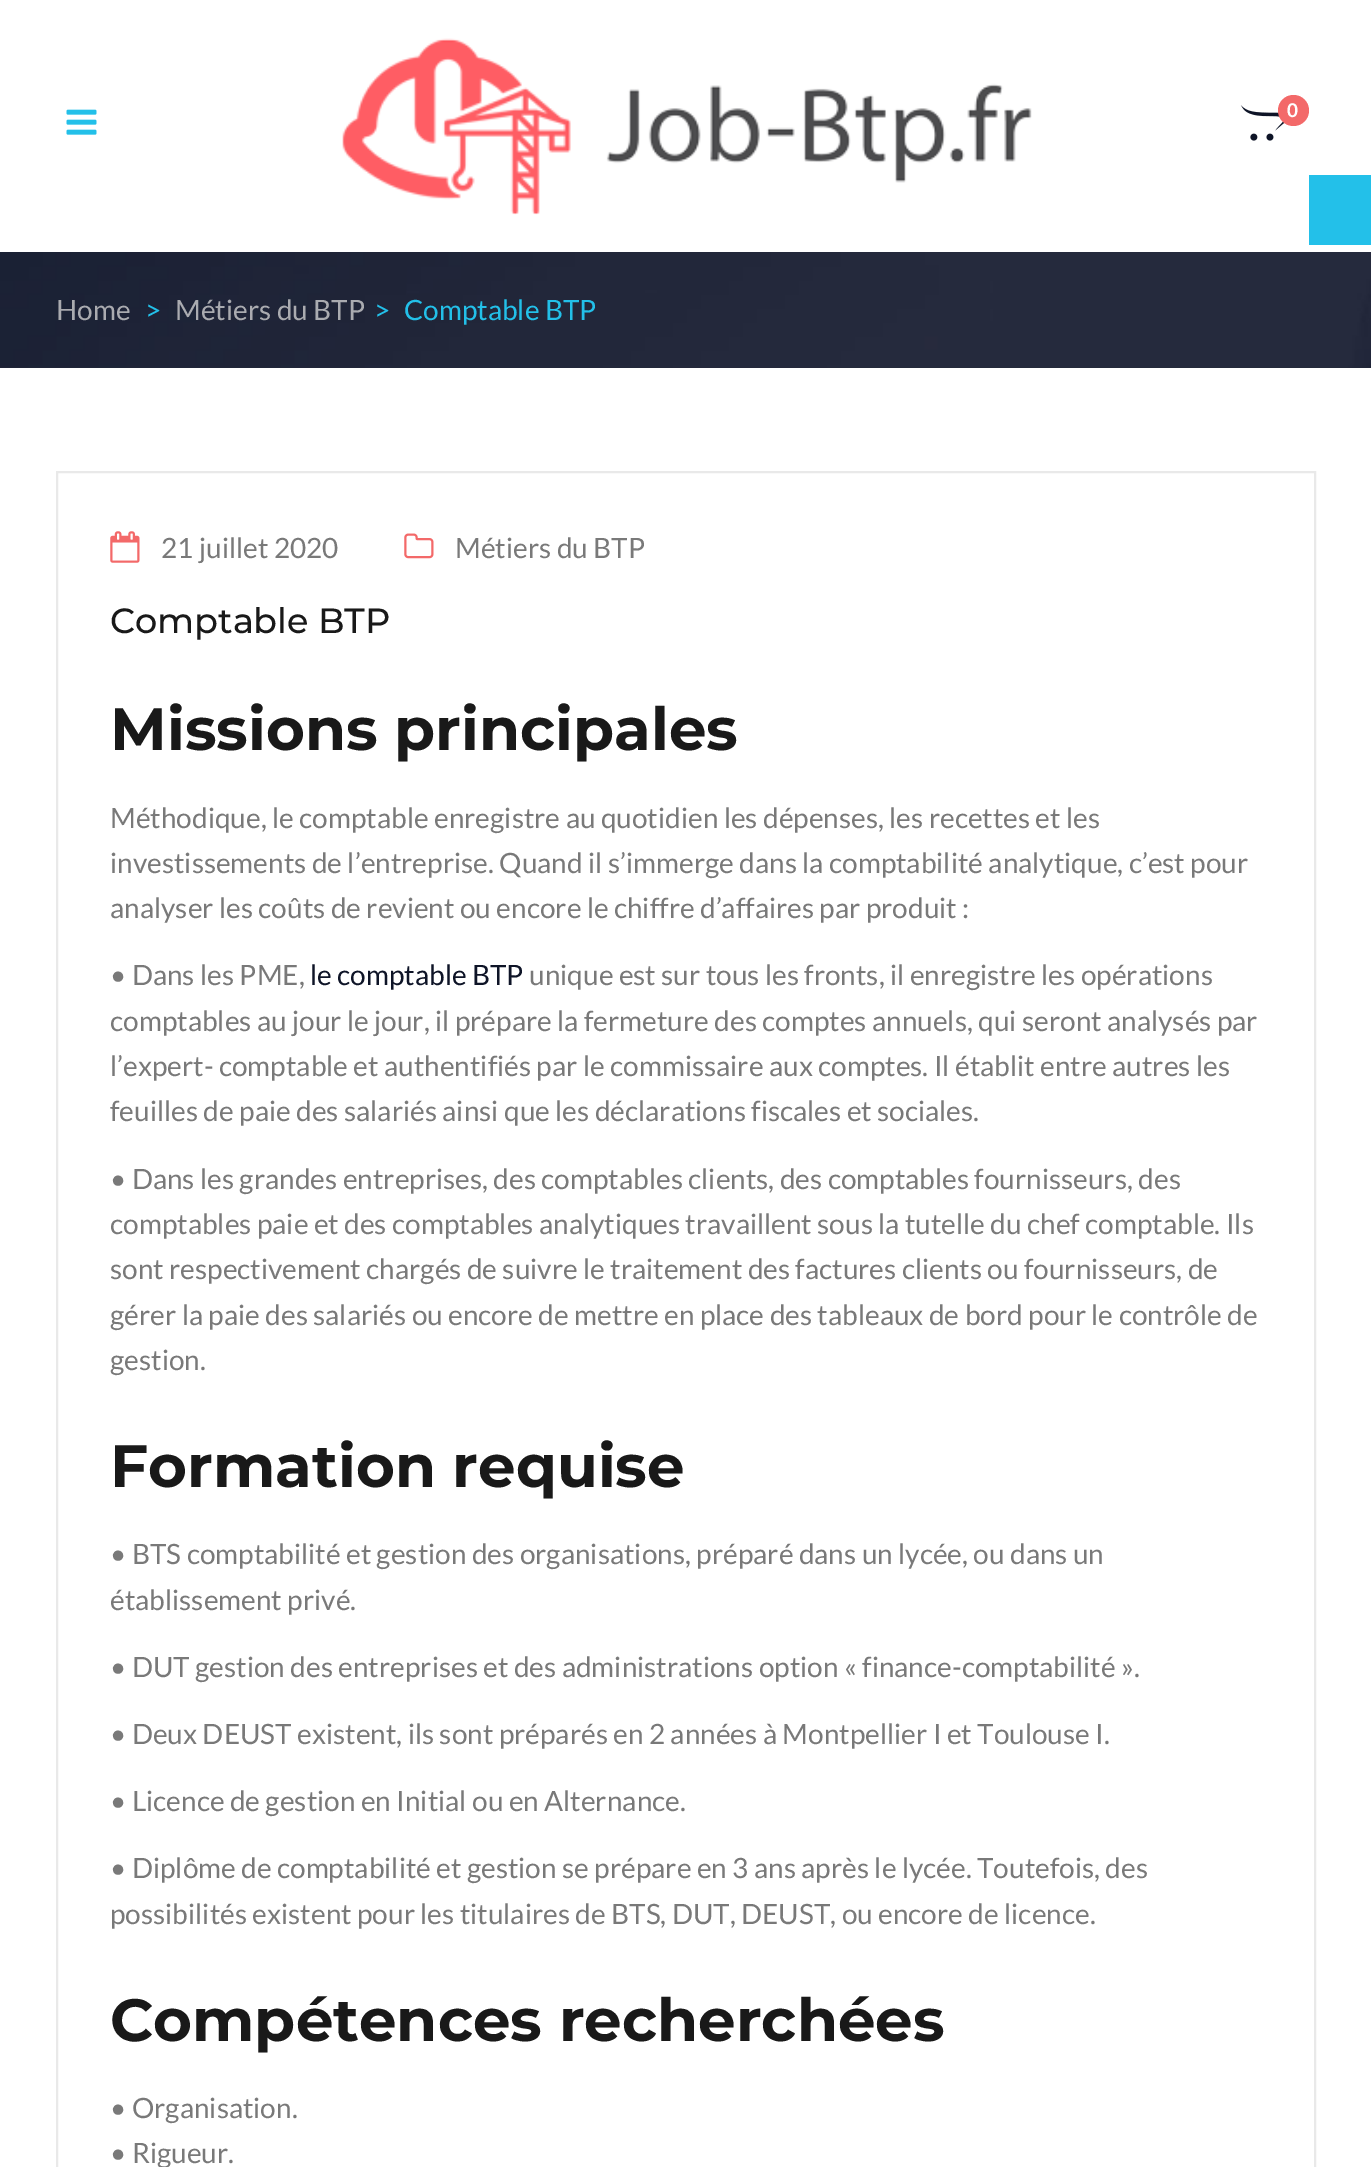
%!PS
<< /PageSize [1371 2167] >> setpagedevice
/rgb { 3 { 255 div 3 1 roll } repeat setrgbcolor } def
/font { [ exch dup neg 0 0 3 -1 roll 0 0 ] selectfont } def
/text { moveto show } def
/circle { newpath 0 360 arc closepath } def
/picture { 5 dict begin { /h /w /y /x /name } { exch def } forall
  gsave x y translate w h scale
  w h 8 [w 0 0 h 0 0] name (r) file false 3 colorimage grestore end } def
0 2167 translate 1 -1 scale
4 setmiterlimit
255 255 255 rgb
0 0 1371 2167 rectfill
(img_01.rgb) 66 109 31 26 picture
(img_02.rgb) 342 38 690 177 picture
(img_03.rgb) 1240 105 45 36 picture
243 105 105 rgb
1293.5 110.5 15.5 circle fill
35 192 233 rgb
1309 175 62 70 rectfill
35 41 58 rgb
0 367 1371 1 rectfill
(img_04.rgb) 0 252 1371 116 picture
233 233 233 rgb
2 setlinewidth
57 472 1258 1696 rectstroke
(img_05.rgb) 110 531 30 32 picture
(img_06.rgb) 404 533 30 26 picture
/Lato-Bold 19 font
255 255 255 rgb
(0) 1287 117 text
/Lato-Regular 28 font
170 171 176 rgb
(Home) 56 320 text
35 192 233 rgb
(>) 145 320 text
170 171 176 rgb
(Métiers du BTP) 175 320 text
35 192 233 rgb
(>) 374 320 text
(Comptable BTP) 404 320 text
121 121 121 rgb
(21 juillet 2020) 161 558 text
(Métiers du BTP) 455 558 text
/Montserrat-Medium 35 font
25 25 25 rgb
(Comptable BTP) 110 633 text
/Montserrat-Bold 59.5 font
(Missions principales) 110 750 text
/Lato-Regular 28 font
121 121 121 rgb
(Méthodique, le comptable enregistre au quotidien les dépenses, les recettes et les) 110 828 text
(investissements de l’entreprise. Quand il s’immerge dans la comptabilité analytique, c’est pour) 110 873 text
(analyser les coûts de revient ou encore le chiffre d’affaires par produit :) 110 918 text
(• Dans les PME,) 110 985 text
14 20 39 rgb
(le comptable BTP) 310 985 text
121 121 121 rgb
(unique est sur tous les fronts, il enregistre les opérations) 529 985 text
(comptables au jour le jour, il prépare la fermeture des comptes annuels, qui seront analysés par) 110 1031 text
(l’expert- comptable et authentifiés par le commissaire aux comptes. Il établit entre autres les) 110 1076 text
(feuilles de paie des salariés ainsi que les déclarations fiscales et sociales.) 110 1121 text
(• Dans les grandes entreprises, des comptables clients, des comptables fournisseurs, des) 110 1189 text
(comptables paie et des comptables analytiques travaillent sous la tutelle du chef comptable. Ils) 110 1234 text
(sont respectivement chargés de suivre le traitement des factures clients ou fournisseurs, de) 110 1279 text
(gérer la paie des salariés ou encore de mettre en place des tableaux de bord pour le contrôle de) 110 1325 text
(gestion.) 110 1370 text
/Montserrat-Bold 59.5 font
25 25 25 rgb
(Formation requise) 110 1487 text
/Lato-Regular 28 font
121 121 121 rgb
(• BTS comptabilité et gestion des organisations, préparé dans un lycée, ou dans un) 110 1564 text
(établissement privé.) 110 1610 text
(• DUT gestion des entreprises et des administrations option « finance-comptabilité ».) 110 1677 text
(• Deux DEUST existent, ils sont préparés en 2 années à Montpellier I et Toulouse I.) 110 1744 text
(• Licence de gestion en Initial ou en Alternance.) 110 1811 text
(• Diplôme de comptabilité et gestion se prépare en 3 ans après le lycée. Toutefois, des) 110 1878 text
(possibilités existent pour les titulaires de BTS, DUT, DEUST, ou encore de licence.) 110 1924 text
/Montserrat-Bold 59.5 font
25 25 25 rgb
(Compétences recherchées) 110 2041 text
/Lato-Regular 28 font
121 121 121 rgb
(• Organisation.) 110 2118 text
(• Rigueur.) 110 2163 text
showpage
